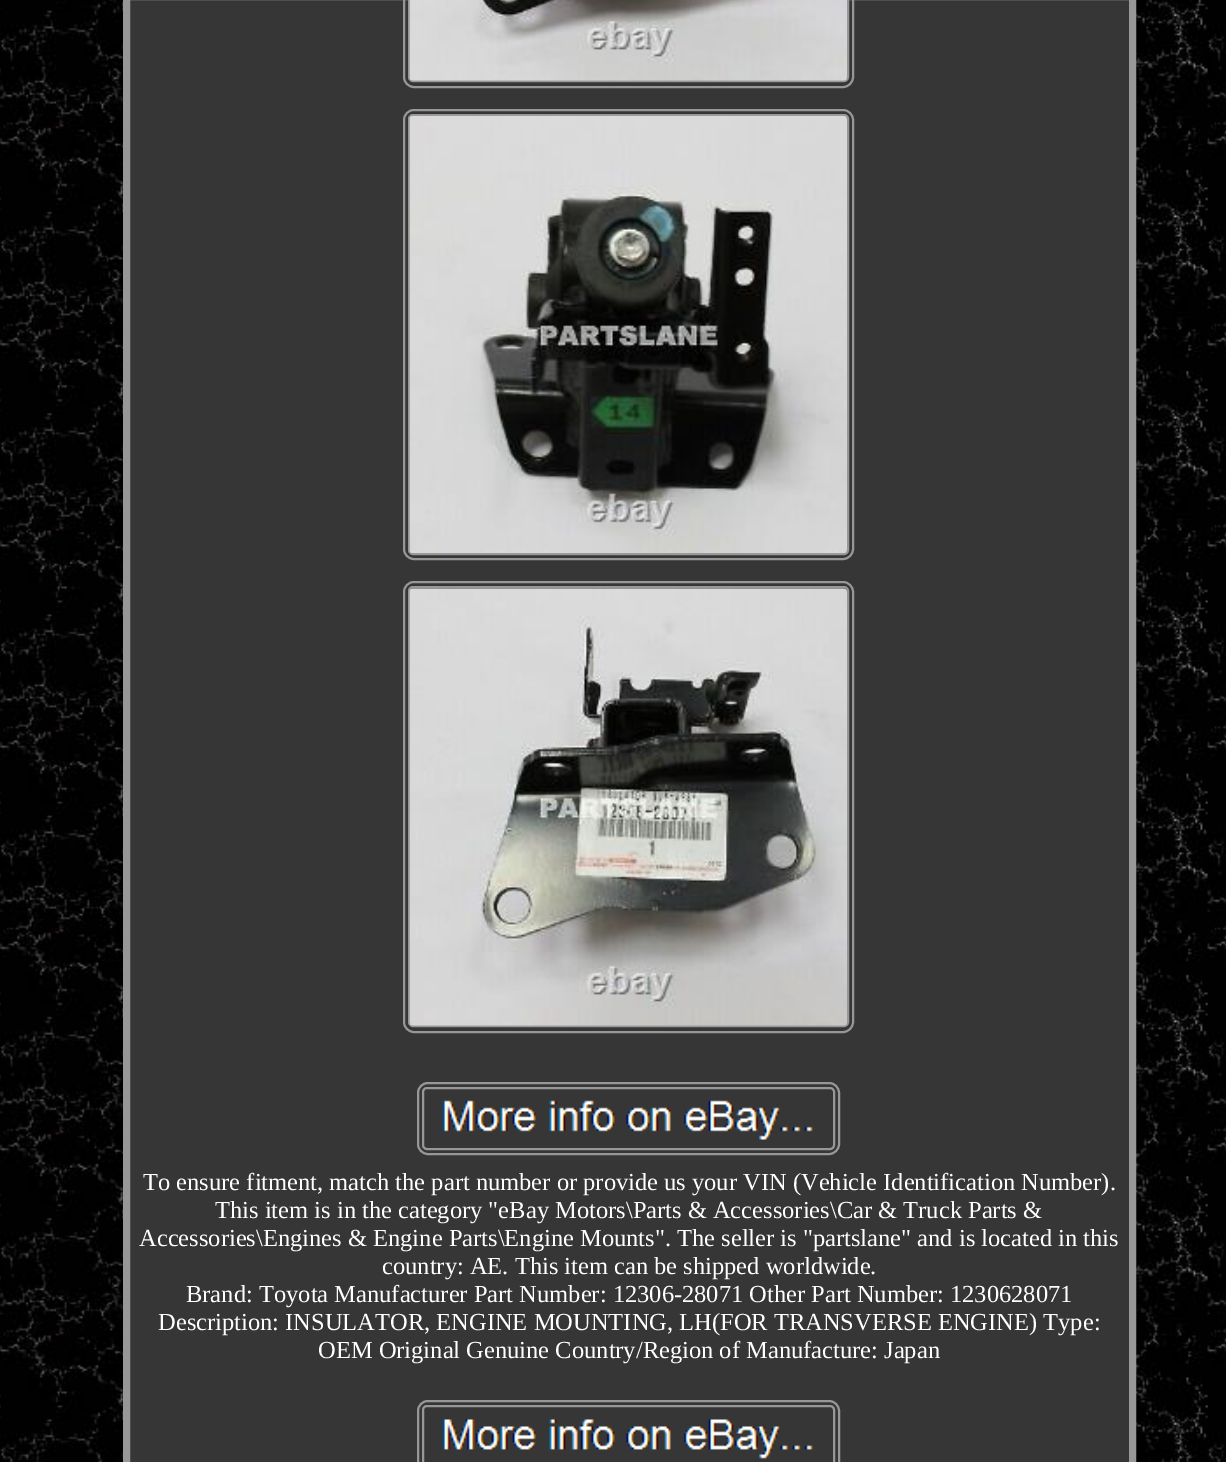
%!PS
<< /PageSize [1226 1462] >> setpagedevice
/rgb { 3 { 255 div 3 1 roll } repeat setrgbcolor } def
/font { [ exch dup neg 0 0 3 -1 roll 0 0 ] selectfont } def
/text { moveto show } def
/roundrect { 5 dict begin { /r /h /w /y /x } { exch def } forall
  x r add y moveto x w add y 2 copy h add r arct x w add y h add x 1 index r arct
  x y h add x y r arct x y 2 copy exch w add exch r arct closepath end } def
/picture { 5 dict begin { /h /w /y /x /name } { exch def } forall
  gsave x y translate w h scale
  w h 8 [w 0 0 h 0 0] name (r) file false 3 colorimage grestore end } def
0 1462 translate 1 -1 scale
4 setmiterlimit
255 255 255 rgb
0 0 1226 1462 rectfill
(img_01.rgb) 0 0 1226 1462 picture
54 54 54 rgb
126.5 -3.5 moveto 1006 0 rlineto 0 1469 rlineto -1006 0 rlineto closepath gsave fill grestore
151 151 151 rgb
7 setlinewidth
stroke
2 setlinewidth
404 -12 449 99 10 roundrect stroke
409 -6 439 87 4 roundrect stroke
(img_02.rgb) 409 0 438 81 picture
404 110 449 449 10 roundrect stroke
409 115 439 439 4 roundrect stroke
(img_03.rgb) 409 115 438 439 picture
404 582 449 450 10 roundrect stroke
409 587 439 439 4 roundrect stroke
(img_04.rgb) 409 588 438 438 picture
418 1083 421 71 10 roundrect stroke
423 1088 411 61 4 roundrect stroke
(img_05.rgb) 442 1100 371 40 picture
418 1401 421 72 10 roundrect stroke
423 1406 411 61 4 roundrect stroke
(img_06.rgb) 442 1419 371 40 picture
/LiberationSerif-Regular 24.5 font
255 255 255 rgb
(To ensure fitment, match the part number or provide us your VIN \(Vehicle Identification Number\).) 143 1190 text
(This item is in the category "eBay Motors\\Parts & Accessories\\Car & Truck Parts &) 215 1218 text
(Accessories\\Engines & Engine Parts\\Engine Mounts". The seller is "partslane" and is located in this) 139 1246 text
(country: AE. This item can be shipped worldwide.) 382 1274 text
(Brand: Toyota Manufacturer Part Number: 12306-28071 Other Part Number: 1230628071) 186 1302 text
(Description: INSULATOR, ENGINE MOUNTING, LH\(FOR TRANSVERSE ENGINE\) Type:) 158 1330 text
(OEM Original Genuine Country/Region of Manufacture: Japan) 318 1358 text
showpage
